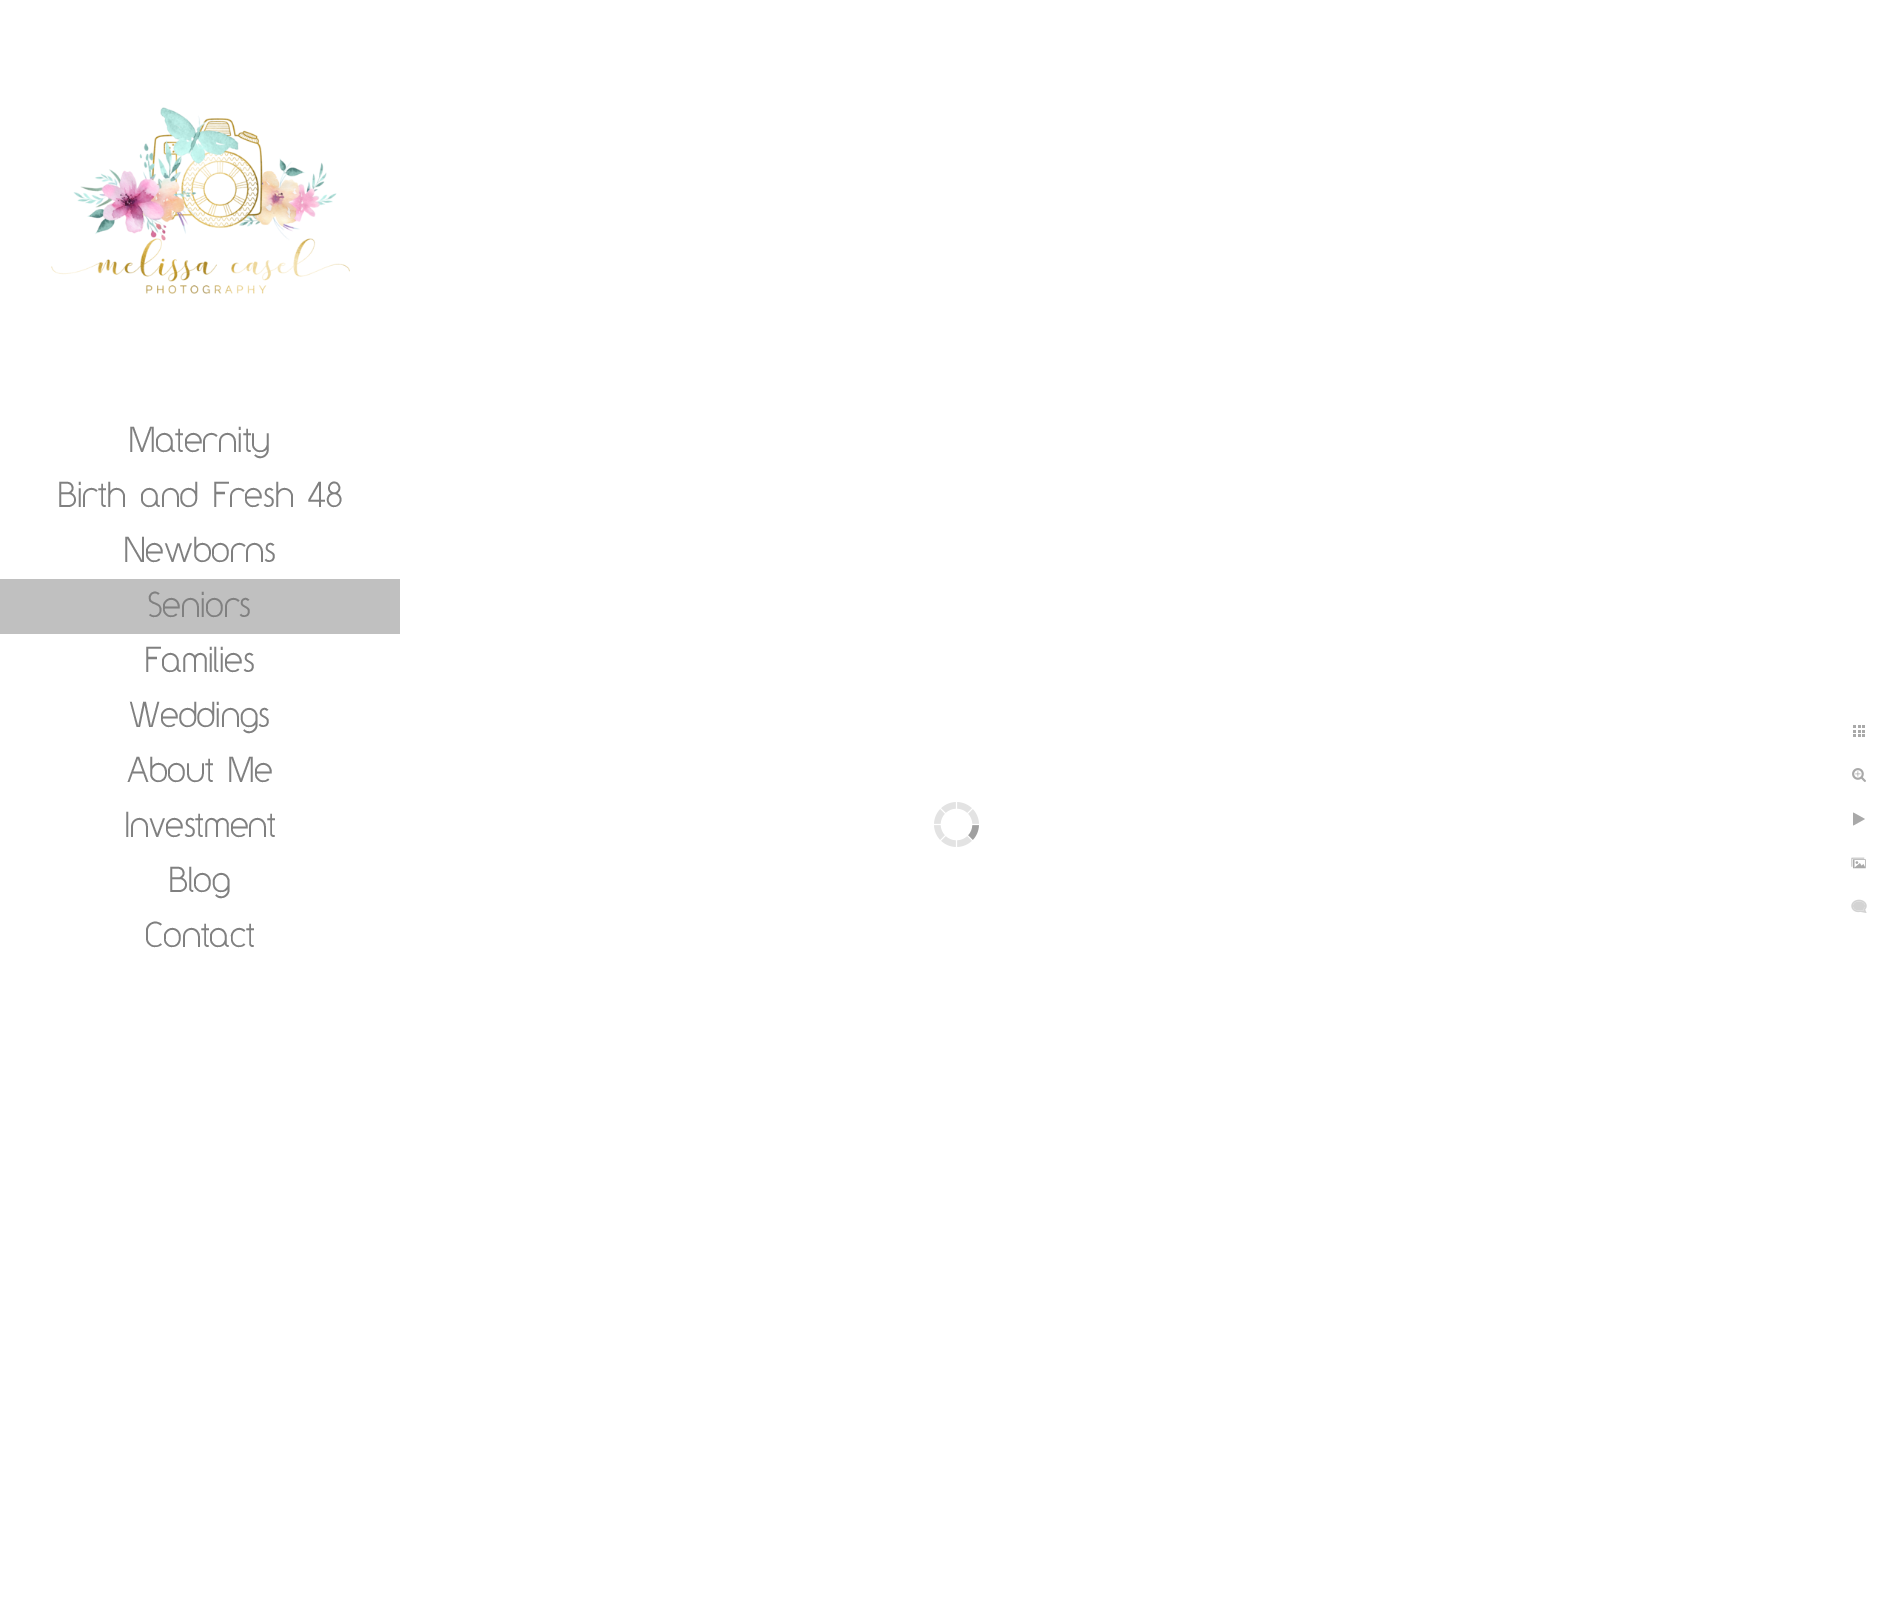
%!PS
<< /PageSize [1886 1618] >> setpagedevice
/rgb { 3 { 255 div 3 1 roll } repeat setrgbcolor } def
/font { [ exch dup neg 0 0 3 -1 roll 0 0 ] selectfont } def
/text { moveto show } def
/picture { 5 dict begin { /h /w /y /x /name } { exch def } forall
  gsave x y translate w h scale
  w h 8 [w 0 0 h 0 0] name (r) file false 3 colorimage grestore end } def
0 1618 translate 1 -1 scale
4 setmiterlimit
255 255 255 rgb
0 0 1886 1618 rectfill
(img_01.rgb) 51 107 299 187 picture
192 192 192 rgb
0 579 400 55 rectfill
(img_02.rgb) 934 802 45 45 picture
(img_03.rgb) 1853 725 12 12 picture
(img_04.rgb) 1852 768 14 14 picture
(img_05.rgb) 1853 812 12 14 picture
(img_06.rgb) 1851 857 15 12 picture
(img_07.rgb) 1851 899 16 14 picture
/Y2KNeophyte-Regular 30 font
128 128 128 rgb
(Maternity) 129 452 text
(Birth and Fresh 48) 58 507 text
(Newborns) 124 562 text
(Seniors) 148 617 text
(Families) 145 672 text
(Weddings) 129 727 text
(About Me) 127 782 text
(Investment) 125 837 text
(Blog) 169 892 text
(Contact) 145 947 text
showpage
